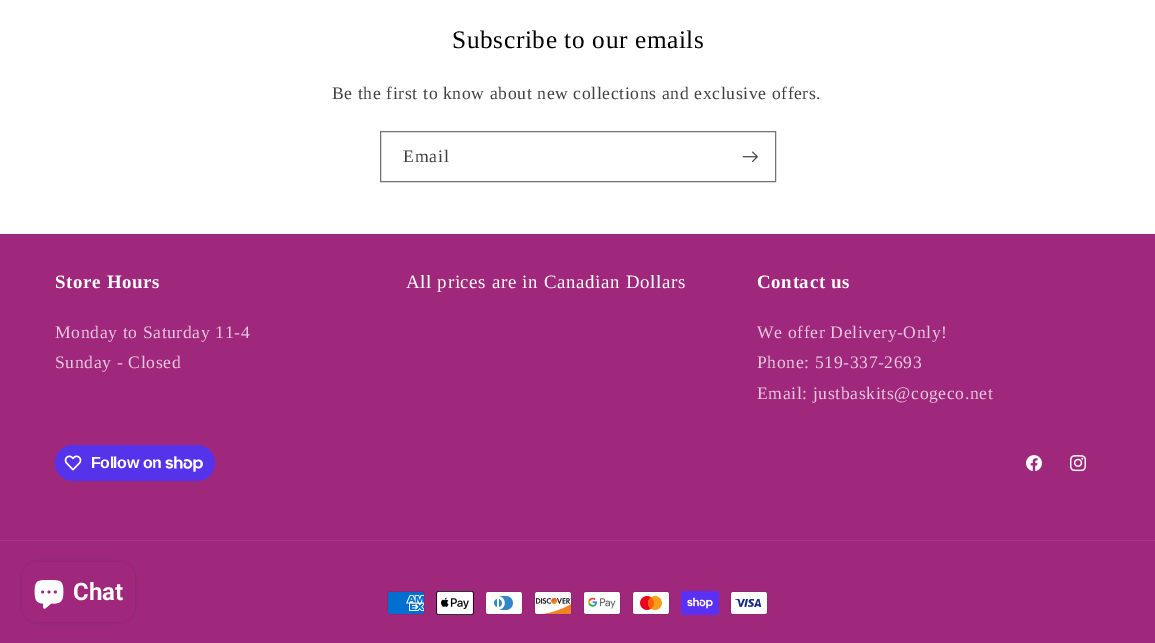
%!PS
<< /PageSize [1155 643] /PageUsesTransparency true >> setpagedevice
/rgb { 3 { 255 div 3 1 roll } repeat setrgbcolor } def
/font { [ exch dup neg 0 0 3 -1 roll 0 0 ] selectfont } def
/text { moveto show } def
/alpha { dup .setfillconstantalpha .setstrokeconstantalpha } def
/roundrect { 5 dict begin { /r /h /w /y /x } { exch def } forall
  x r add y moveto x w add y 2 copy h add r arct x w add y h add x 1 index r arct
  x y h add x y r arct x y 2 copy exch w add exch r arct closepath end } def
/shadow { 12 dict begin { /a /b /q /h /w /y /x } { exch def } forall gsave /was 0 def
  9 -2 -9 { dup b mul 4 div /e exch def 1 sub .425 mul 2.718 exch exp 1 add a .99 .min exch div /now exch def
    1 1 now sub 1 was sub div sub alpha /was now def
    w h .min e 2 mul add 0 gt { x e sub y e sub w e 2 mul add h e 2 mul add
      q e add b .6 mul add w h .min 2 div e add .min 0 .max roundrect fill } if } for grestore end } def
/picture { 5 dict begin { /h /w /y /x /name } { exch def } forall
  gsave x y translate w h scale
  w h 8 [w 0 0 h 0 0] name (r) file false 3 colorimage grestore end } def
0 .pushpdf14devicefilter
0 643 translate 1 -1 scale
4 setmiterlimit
255 255 255 rgb
0 0 1155 643 rectfill
115 115 115 rgb
380.5 131.5 395 50 rectstroke
(img_01.rgb) 742 151 16 11 picture
160 40 124 rgb
0 234 1155 409 rectfill
84 51 235 rgb
55 445 160 36 18 roundrect fill
(img_02.rgb) 64 455 18 16 picture
(img_03.rgb) 165 456 38 16 picture
(img_04.rgb) 1026 455 16 16 picture
(img_05.rgb) 1070 455 16 17 picture
168 57 134 rgb
0 540 1155 1 rectfill
(img_06.rgb) 387 591 38 24 picture
(img_07.rgb) 436 591 38 24 picture
(img_08.rgb) 485 591 38 24 picture
(img_09.rgb) 534 591 38 24 picture
(img_10.rgb) 583 591 38 24 picture
(img_11.rgb) 632 591 38 24 picture
(img_12.rgb) 681 591 38 24 picture
(img_13.rgb) 730 591 38 24 picture
0 0 0 rgb
22 562 113 60 16 2.5 0.15 shadow
160 40 124 rgb
22 562 113 60 16 roundrect fill
(img_14.rgb) 34 580 30 29 picture
/LiberationSerif-Regular 25.25 font
0 0 0 rgb
452 48 moveto 0.65 0 (Subscribe to our emails) ashow
/LiberationSerif-Regular 17.6 font
64 64 64 rgb
332 99 moveto 0.65 0 (Be the first to know about new collections and exclusive offers.) ashow
403 162 moveto 1 0 (Email) ashow
/LiberationSerif-Bold 18.9 font
255 255 255 rgb
55 288 moveto 0.65 0 (Store Hours) ashow
/LiberationSerif-Regular 17.6 font
231 201 222 rgb
55 338 moveto 0.65 0 (Monday to Saturday 11-4) ashow
55 368 moveto 0.65 0 (Sunday - Closed) ashow
/LiberationSerif-Regular 18.9 font
255 255 255 rgb
406 288 moveto 0.65 0 (All prices are in Canadian Dollars) ashow
/LiberationSerif-Bold 18.9 font
757 288 moveto 0.65 0 (Contact us) ashow
/LiberationSerif-Regular 17.6 font
231 201 222 rgb
757 338 moveto 0.65 0 (We offer Delivery-Only!) ashow
757 368 moveto 0.65 0 (Phone: 519-337-2693) ashow
757 399 moveto 0.65 0 (Email: justbaskits@cogeco.net) ashow
/LiberationSans-Bold 16 font
255 255 255 rgb
91 468 moveto -0.5 0 (Follow on) ashow
/Roboto-Bold 24 font
(Chat) 73 600 text
.poppdf14devicefilter showpage
